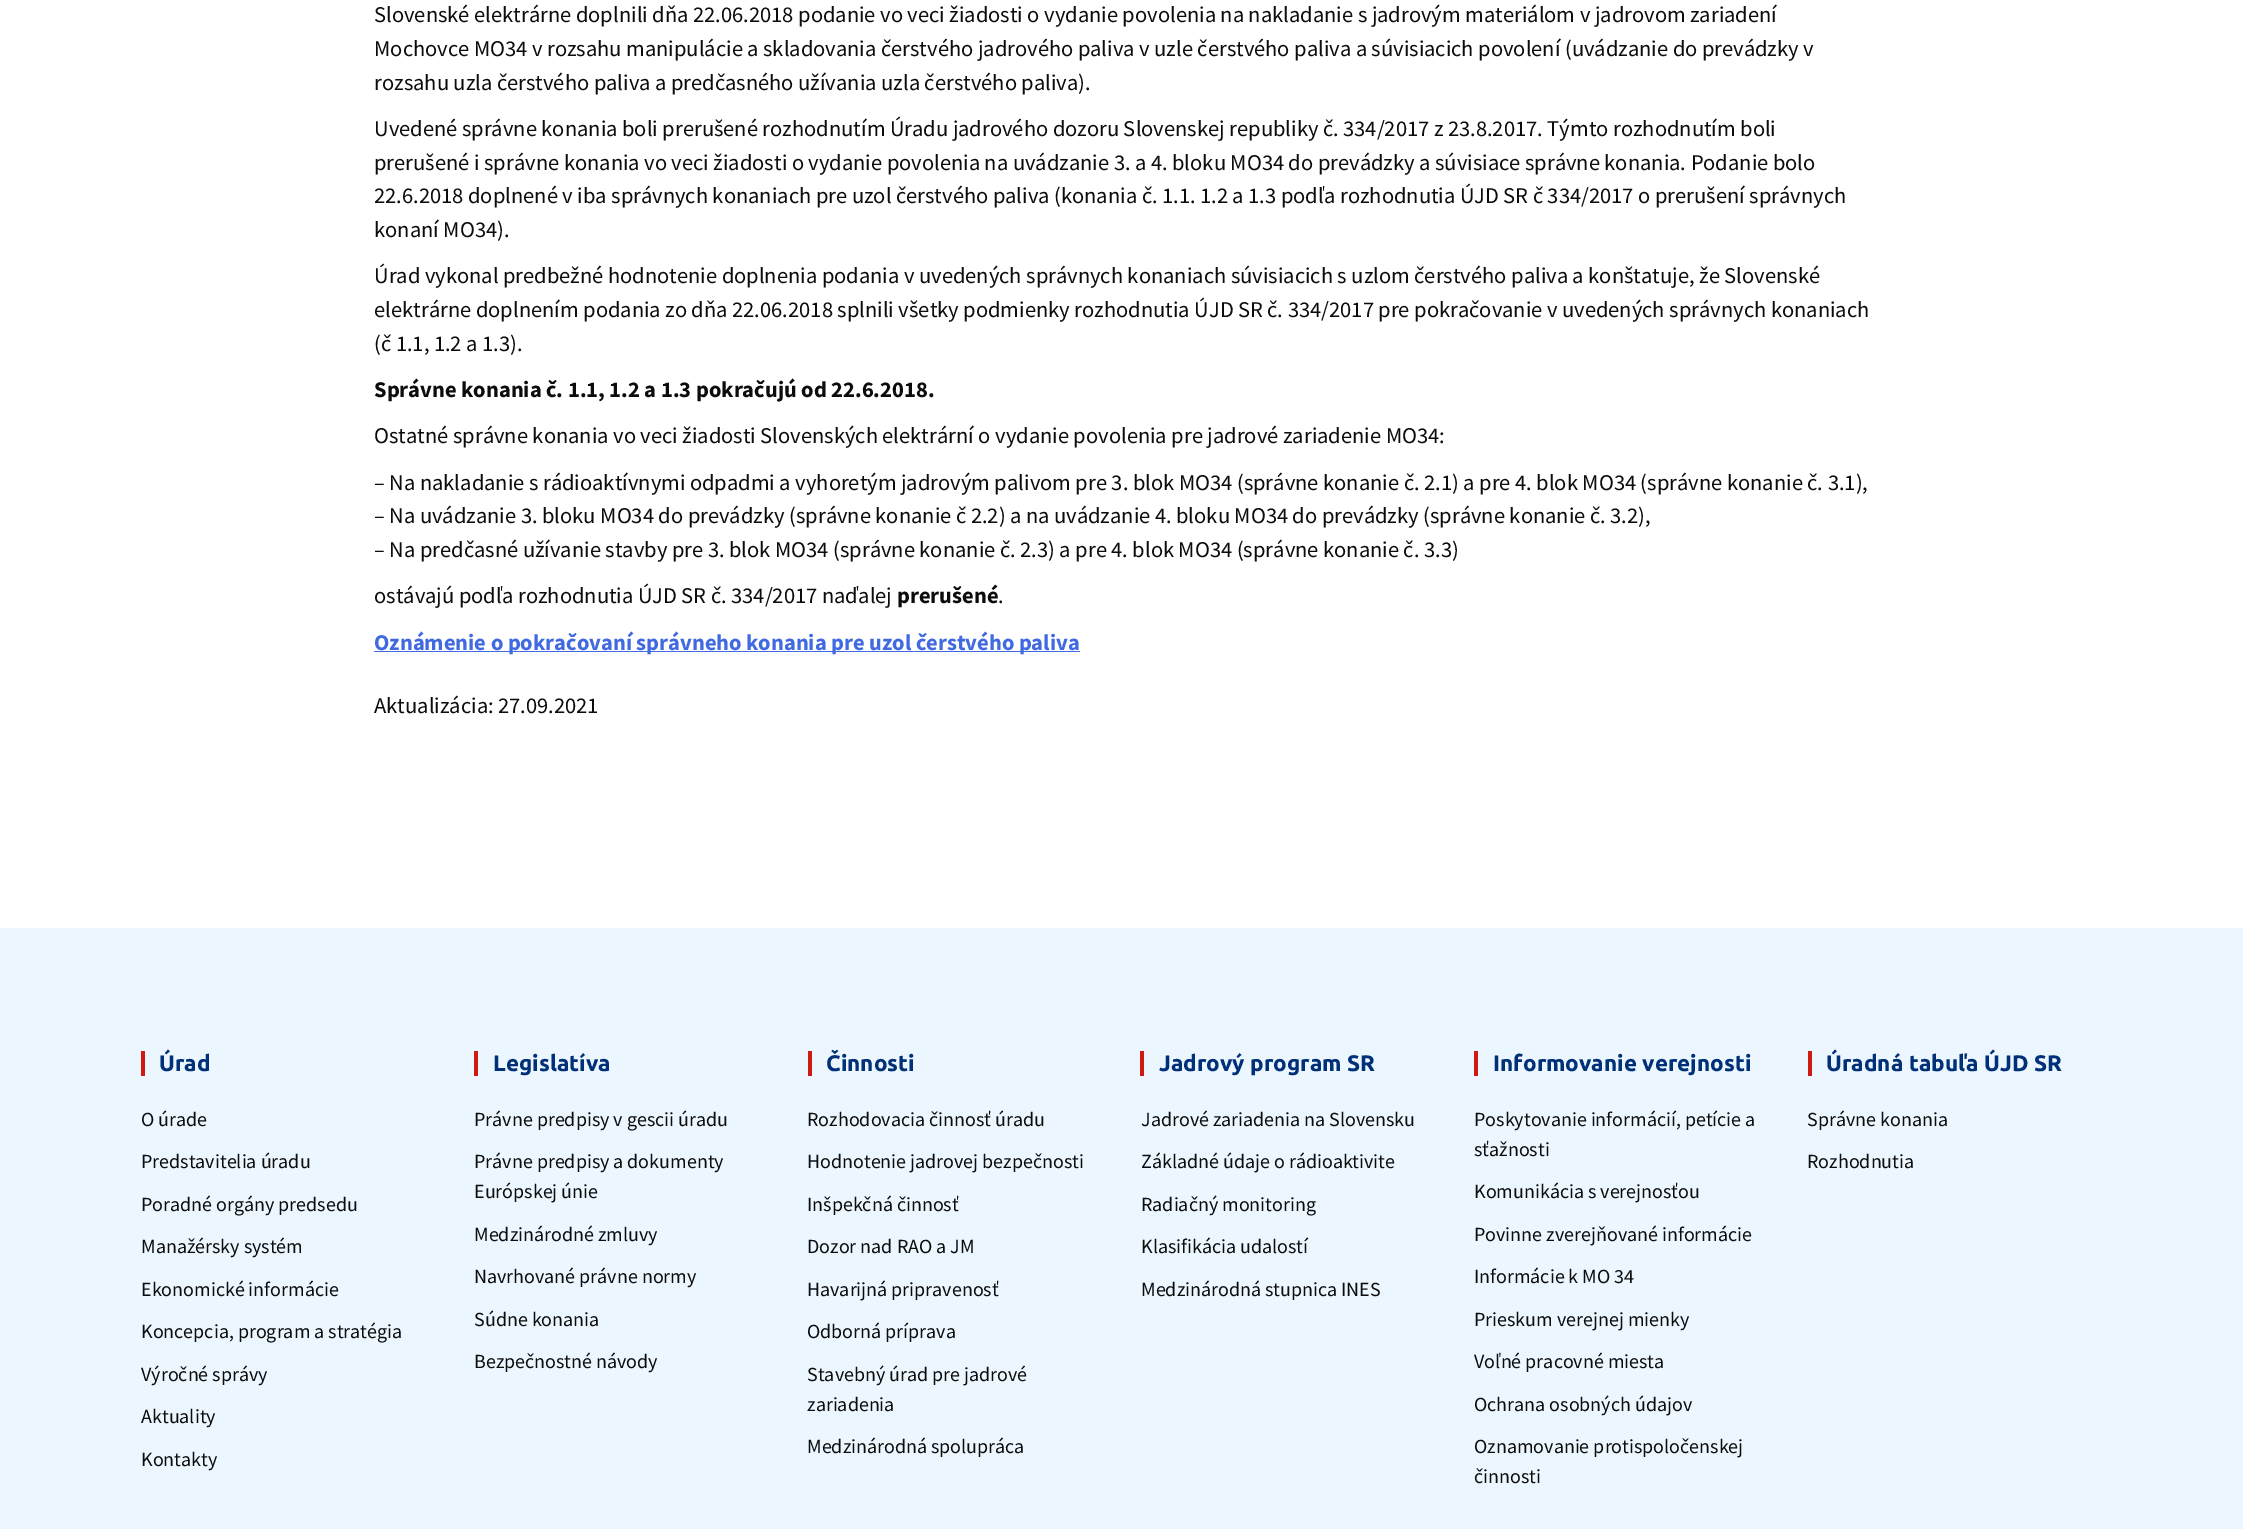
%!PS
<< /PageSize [2243 1529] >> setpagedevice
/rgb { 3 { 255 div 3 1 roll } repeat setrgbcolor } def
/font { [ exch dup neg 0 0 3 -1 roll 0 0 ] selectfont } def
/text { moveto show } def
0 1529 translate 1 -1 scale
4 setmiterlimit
255 255 255 rgb
0 0 2243 1529 rectfill
65 105 225 rgb
374 651 706 1 rectfill
236 246 254 rgb
0 928 2243 601 rectfill
208 25 15 rgb
141 1051 4 25 rectfill
474 1051 4 25 rectfill
808 1051 4 25 rectfill
1140 1051 4 25 rectfill
1474 1051 4 25 rectfill
1808 1051 4 25 rectfill
/SourceSansPro-Regular 22.5 font
11 12 12 rgb
(Slovenské elektrárne doplnili dňa 22.06.2018 podanie vo veci žiadosti o vydanie povolenia na nakladanie s jadrovým materiálom v jadrovom zariadení) 374 22 text
(Mochovce MO34 v rozsahu manipulácie a skladovania čerstvého jadrového paliva v uzle čerstvého paliva a súvisiacich povolení \(uvádzanie do prevádzky v) 374 56 text
(rozsahu uzla čerstvého paliva a predčasného užívania uzla čerstvého paliva\).) 374 90 text
(Uvedené správne konania boli prerušené rozhodnutím Úradu jadrového dozoru Slovenskej republiky č. 334/2017 z 23.8.2017. Týmto rozhodnutím boli) 374 136 text
(prerušené i správne konania vo veci žiadosti o vydanie povolenia na uvádzanie 3. a 4. bloku MO34 do prevádzky a súvisiace správne konania. Podanie bolo) 374 170 text
(22.6.2018 doplnené v iba správnych konaniach pre uzol čerstvého paliva \(konania č. 1.1. 1.2 a 1.3 podľa rozhodnutia ÚJD SR č 334/2017 o prerušení správnych) 374 203 text
(konaní MO34\).) 374 237 text
(Úrad vykonal predbežné hodnotenie doplnenia podania v uvedených správnych konaniach súvisiacich s uzlom čerstvého paliva a konštatuje, že Slovenské) 374 283 text
(elektrárne doplnením podania zo dňa 22.06.2018 splnili všetky podmienky rozhodnutia ÚJD SR č. 334/2017 pre pokračovanie v uvedených správnych konaniach) 374 317 text
(\(č 1.1, 1.2 a 1.3\).) 374 351 text
/SourceSansPro-Bold 22.5 font
(Správne konania č. 1.1, 1.2 a 1.3 pokračujú od 22.6.2018.) 374 397 text
/SourceSansPro-Regular 22.5 font
(Ostatné správne konania vo veci žiadosti Slovenských elektrární o vydanie povolenia pre jadrové zariadenie MO34:) 374 443 text
(– Na nakladanie s rádioaktívnymi odpadmi a vyhoretým jadrovým palivom pre 3. blok MO34 \(správne konanie č. 2.1\) a pre 4. blok MO34 \(správne konanie č. 3.1\),) 374 490 text
(– Na uvádzanie 3. bloku MO34 do prevádzky \(správne konanie č 2.2\) a na uvádzanie 4. bloku MO34 do prevádzky \(správne konanie č. 3.2\),) 374 523 text
(– Na predčasné užívanie stavby pre 3. blok MO34 \(správne konanie č. 2.3\) a pre 4. blok MO34 \(správne konanie č. 3.3\)) 374 557 text
(ostávajú podľa rozhodnutia ÚJD SR č. 334/2017 naďalej) 374 603 text
/SourceSansPro-Bold 22.5 font
(prerušené) 897 603 text
/SourceSansPro-Regular 22.5 font
(.) 998 603 text
/SourceSansPro-Bold 22.5 font
65 105 225 rgb
(Oznámenie o pokračovaní správneho konania pre uzol čerstvého paliva) 374 650 text
/SourceSansPro-Regular 22.5 font
11 12 12 rgb
(Aktualizácia: 27.09.2021) 374 713 text
/Ubuntu-Bold 22.5 font
0 48 120 rgb
(Úrad) 159 1071 text
/SourceSansPro-Regular 20 font
11 12 12 rgb
(O úrade) 141 1126 text
(Predstavitelia úradu) 141 1168 text
(Poradné orgány predsedu) 141 1211 text
(Manažérsky systém) 141 1253 text
(Ekonomické informácie) 141 1296 text
(Koncepcia, program a stratégia) 141 1338 text
(Výročné správy) 141 1381 text
(Aktuality) 141 1423 text
(Kontakty) 141 1466 text
/Ubuntu-Bold 22.5 font
0 48 120 rgb
(Legislatíva) 493 1071 text
/SourceSansPro-Regular 20 font
11 12 12 rgb
(Právne predpisy v gescii úradu) 474 1126 text
(Právne predpisy a dokumenty) 474 1168 text
(Európskej únie) 474 1198 text
(Medzinárodné zmluvy) 474 1241 text
(Navrhované právne normy) 474 1283 text
(Súdne konania) 474 1326 text
(Bezpečnostné návody) 474 1368 text
/Ubuntu-Bold 22.5 font
0 48 120 rgb
(Činnosti) 826 1071 text
/SourceSansPro-Regular 20 font
11 12 12 rgb
(Rozhodovacia činnosť úradu) 807 1126 text
(Hodnotenie jadrovej bezpečnosti) 807 1168 text
(Inšpekčná činnosť) 807 1211 text
(Dozor nad RAO a JM) 807 1253 text
(Havarijná pripravenosť) 807 1296 text
(Odborná príprava) 807 1338 text
(Stavebný úrad pre jadrové) 807 1381 text
(zariadenia) 807 1411 text
(Medzinárodná spolupráca) 807 1453 text
/Ubuntu-Bold 22.5 font
0 48 120 rgb
(Jadrový program SR) 1159 1071 text
/SourceSansPro-Regular 20 font
11 12 12 rgb
(Jadrové zariadenia na Slovensku) 1141 1126 text
(Základné údaje o rádioaktivite) 1141 1168 text
(Radiačný monitoring) 1141 1211 text
(Klasifikácia udalostí) 1141 1253 text
(Medzinárodná stupnica INES) 1141 1296 text
/Ubuntu-Bold 22.5 font
0 48 120 rgb
(Informovanie verejnosti) 1493 1071 text
/SourceSansPro-Regular 20 font
11 12 12 rgb
(Poskytovanie informácií, petície a) 1474 1126 text
(sťažnosti) 1474 1156 text
(Komunikácia s verejnosťou) 1474 1198 text
(Povinne zverejňované informácie) 1474 1241 text
(Informácie k MO 34) 1474 1283 text
(Prieskum verejnej mienky) 1474 1326 text
(Voľné pracovné miesta) 1474 1368 text
(Ochrana osobných údajov) 1474 1411 text
(Oznamovanie protispoločenskej) 1474 1453 text
(činnosti) 1474 1483 text
/Ubuntu-Bold 22.5 font
0 48 120 rgb
(Úradná tabuľa ÚJD SR) 1826 1071 text
/SourceSansPro-Regular 20 font
11 12 12 rgb
(Správne konania) 1807 1126 text
(Rozhodnutia) 1807 1168 text
showpage
